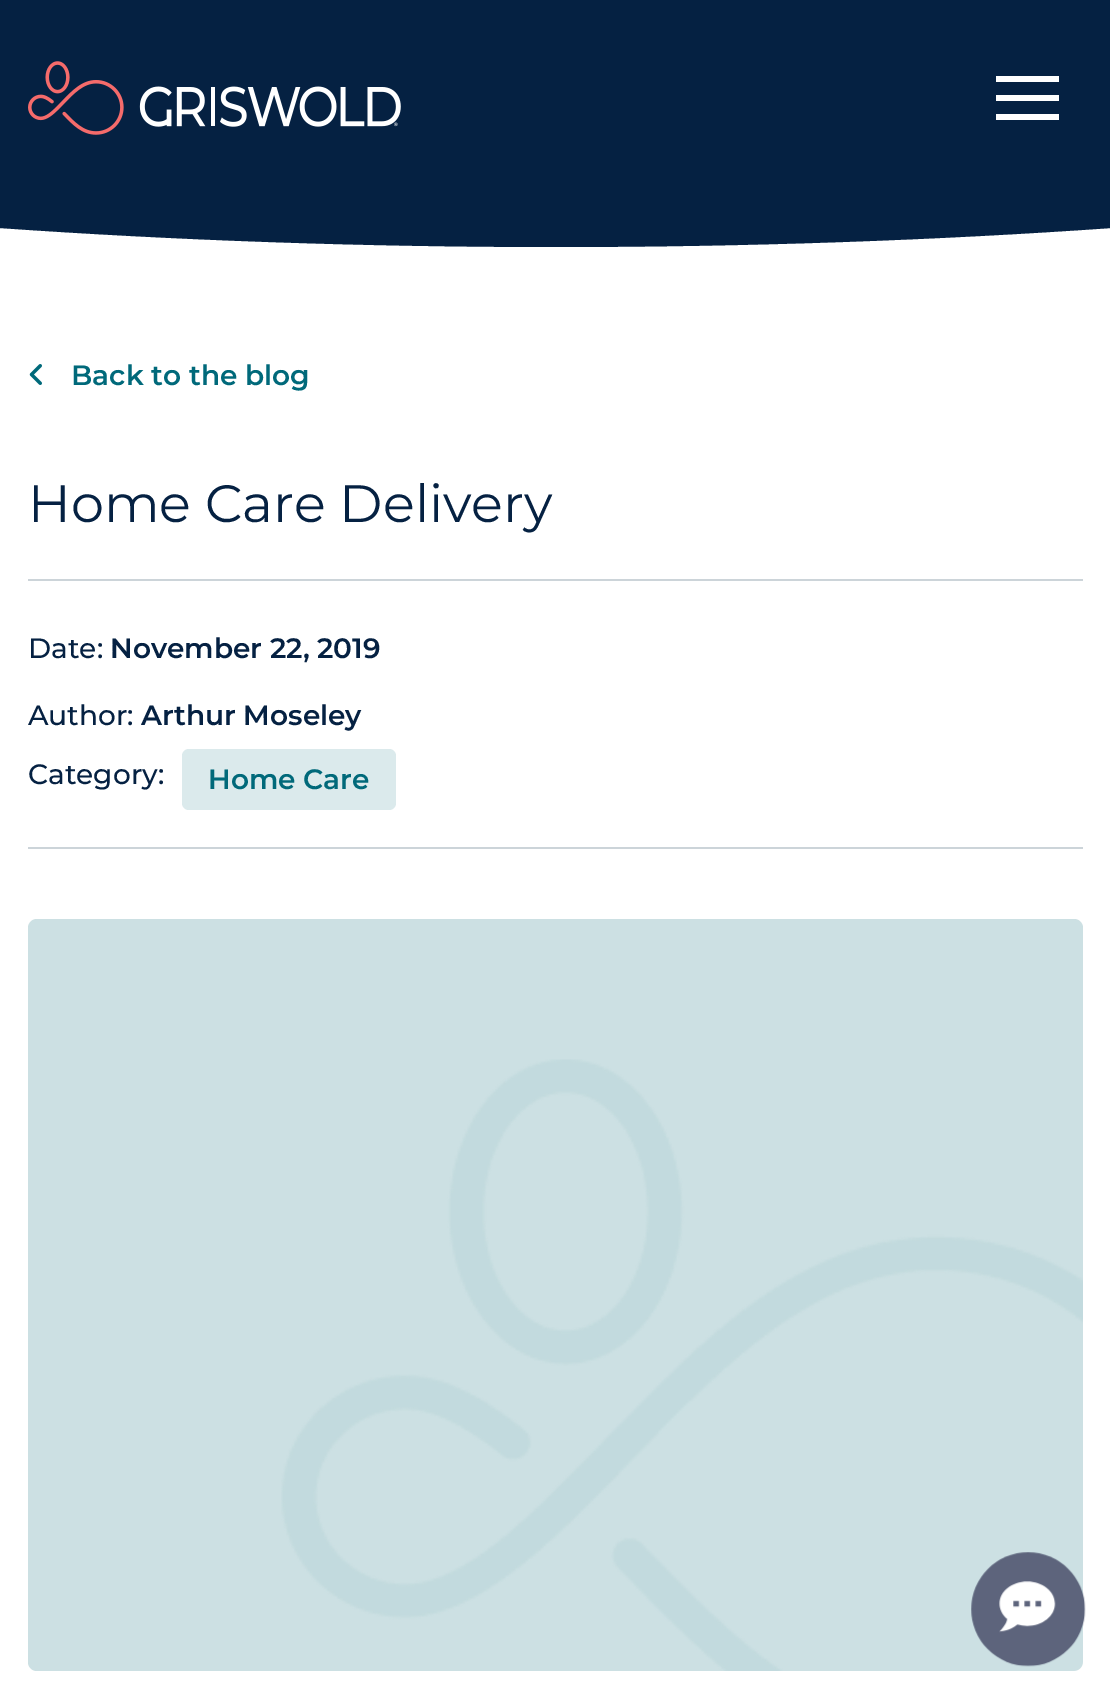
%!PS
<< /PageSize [1110 1691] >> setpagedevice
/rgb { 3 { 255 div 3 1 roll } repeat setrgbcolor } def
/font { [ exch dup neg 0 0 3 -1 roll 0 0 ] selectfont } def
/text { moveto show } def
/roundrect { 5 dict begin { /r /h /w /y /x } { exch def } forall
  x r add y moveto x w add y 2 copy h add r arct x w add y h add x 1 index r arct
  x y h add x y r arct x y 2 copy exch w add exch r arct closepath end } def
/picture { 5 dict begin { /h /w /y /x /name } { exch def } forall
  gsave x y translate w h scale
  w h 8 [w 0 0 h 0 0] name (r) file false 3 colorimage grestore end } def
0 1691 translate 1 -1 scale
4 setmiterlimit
255 255 255 rgb
0 0 1110 1691 rectfill
5 33 66 rgb
0 0 moveto 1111 0 rlineto 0 228 rlineto -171 12 -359 19 -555 19 rcurveto -197 0 -385 -7 -556 -19 rcurveto closepath fill
(img_01.rgb) 28 61 373 74 picture
255 255 255 rgb
996 76 63 6 rectfill
996 95 63 6 rectfill
996 114 63 6 rectfill
(img_02.rgb) 29 364 13 21 picture
204 212 217 rgb
28 579 1055 2 rectfill
28 847 1055 2 rectfill
219 234 236 rgb
182 749 214 61 7 roundrect fill
204 224 227 rgb
28 919 1055 752 9 roundrect fill
(img_03.rgb) 281 1059 802 612 picture
(img_04.rgb) 971 1552 115 115 picture
/Montserrat-SemiBold 28 font
0 105 122 rgb
(Back to the blog) 71 385 text
/Montserrat-Regular 52.5 font
5 33 66 rgb
(Home Care Delivery) 28 522 text
/Montserrat-Medium 28 font
(Date:) 28 658 text
/Montserrat-SemiBold 28 font
(November 22, 2019) 110 658 text
/Montserrat-Medium 28 font
(Author:) 28 725 text
/Montserrat-SemiBold 28 font
(Arthur Moseley) 141 725 text
/Montserrat-Medium 28 font
(Category:) 28 784 text
/Montserrat-SemiBold 28 font
0 105 122 rgb
(Home Care) 208 789 text
showpage
